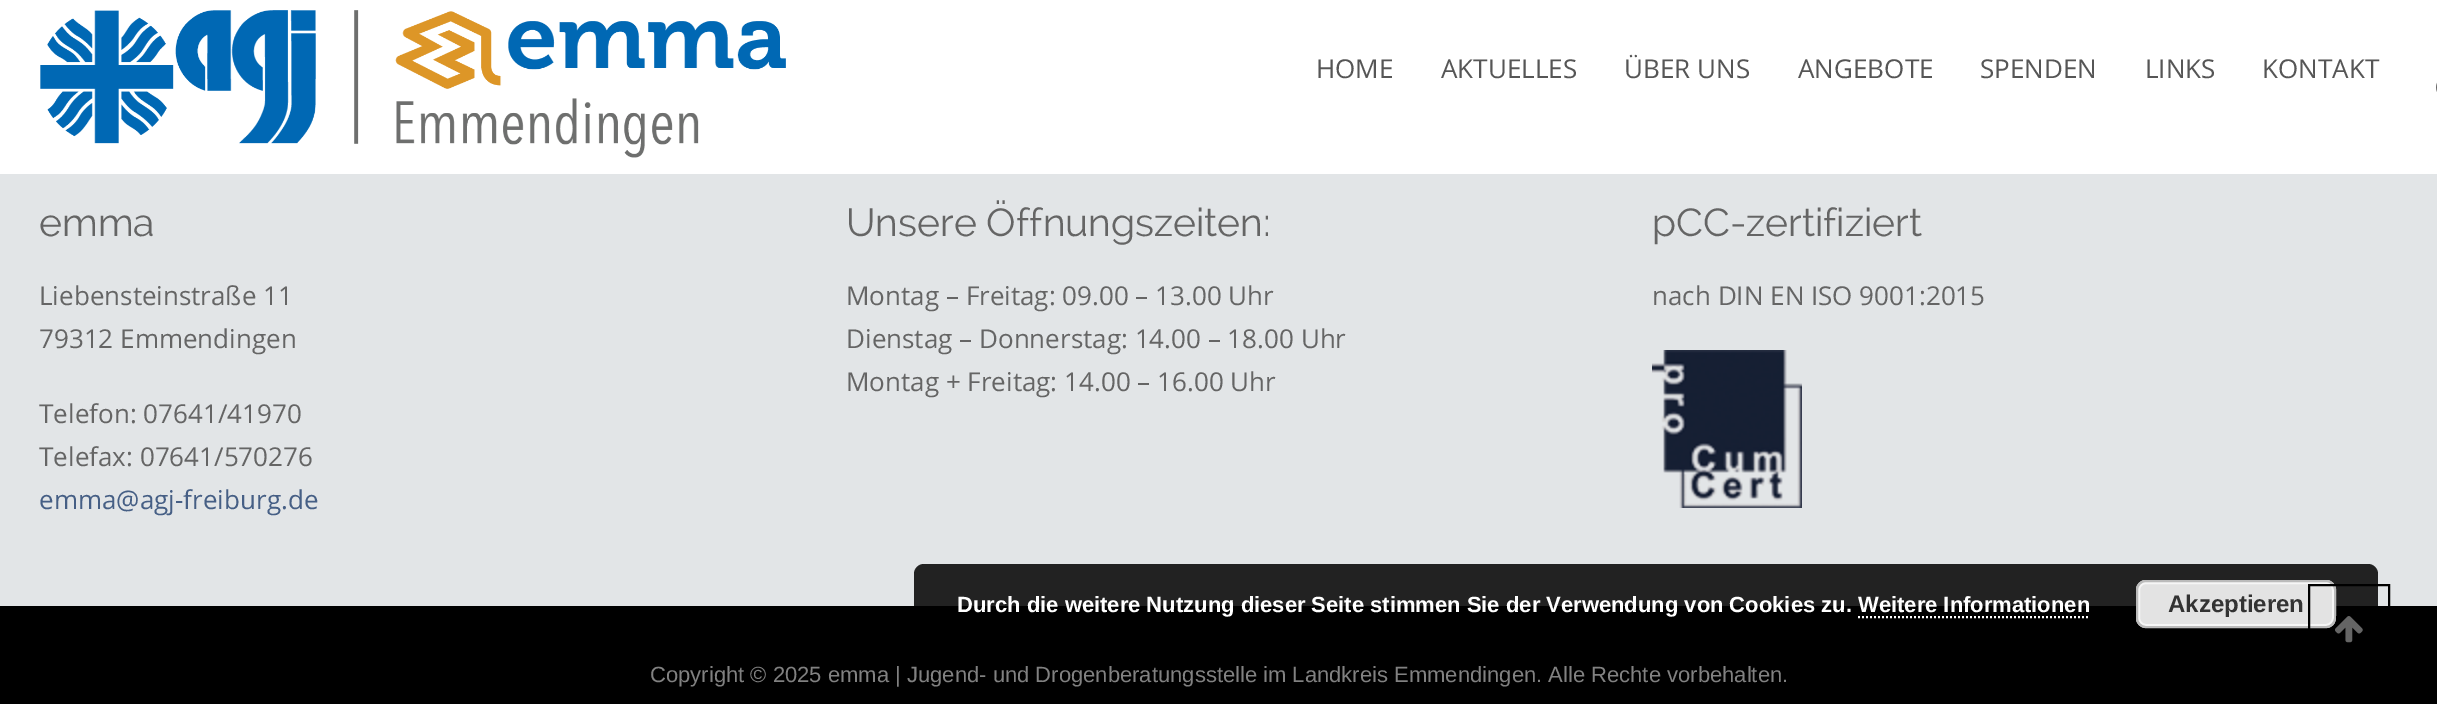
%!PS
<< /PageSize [2437 704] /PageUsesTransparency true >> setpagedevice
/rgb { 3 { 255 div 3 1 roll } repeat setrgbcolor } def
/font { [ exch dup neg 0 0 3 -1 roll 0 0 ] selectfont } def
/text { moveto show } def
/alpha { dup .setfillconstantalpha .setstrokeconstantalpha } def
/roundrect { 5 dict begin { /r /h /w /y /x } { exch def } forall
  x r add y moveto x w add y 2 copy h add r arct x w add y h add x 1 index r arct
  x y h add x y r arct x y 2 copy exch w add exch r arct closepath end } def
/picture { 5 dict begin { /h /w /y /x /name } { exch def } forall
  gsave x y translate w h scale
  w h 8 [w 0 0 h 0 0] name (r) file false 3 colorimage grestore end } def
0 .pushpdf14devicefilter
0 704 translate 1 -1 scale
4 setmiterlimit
226 229 231 rgb
0 0 2437 704 rectfill
255 255 255 rgb
0 0 2437 174 rectfill
(img_01.rgb) 40 10 746 148 picture
(img_02.rgb) 2436 82 1 10 picture
(img_03.rgb) 1652 350 150 158 picture
0 0 0 rgb
0 606 2437 98 rectfill
0.85 alpha
914 564 1464 80 10 roundrect fill
1 alpha
227 227 227 rgb
2136 580 200 48 10 roundrect fill
246 246 246 rgb
2 setlinewidth
2139 583 194 42 7 roundrect stroke
187 187 187 rgb
2137 581 198 46 9 roundrect stroke
255 255 255 rgb
[2 2] 0 setdash
1858 617 moveto 232 0 rlineto stroke
0 0 0 rgb
[] 0 setdash
2309 585 80 86 rectstroke
(img_04.rgb) 2335 616 28 27 picture
/OpenSans-Regular 26 font
86 86 86 rgb
(HOME) 1316 78 text
(AKTUELLES) 1441 78 text
(ÜBER UNS) 1624 78 text
(ANGEBOTE) 1798 78 text
(SPENDEN) 1980 78 text
(LINKS) 2145 78 text
(KONTAKT) 2262 78 text
/Raleway-Regular 39 font
101 101 101 rgb
(emma) 39 236 text
/OpenSans-Regular 26 font
(Liebensteinstraße 11) 39 305 text
(79312 Emmendingen) 39 348 text
(Telefon: 07641/41970) 39 423 text
(Telefax: 07641/570276) 39 466 text
70 95 133 rgb
(emma@agj-freiburg.de) 39 509 text
/Raleway-Regular 39 font
101 101 101 rgb
(Unsere Öffnungszeiten:) 846 236 text
/OpenSans-Regular 26 font
(Montag – Freitag: 09.00 – 13.00 Uhr) 846 305 text
(Dienstag – Donnerstag: 14.00 – 18.00 Uhr) 846 348 text
(Montag + Freitag: 14.00 – 16.00 Uhr) 846 391 text
/Raleway-Regular 39 font
(pCC-zertifiziert) 1652 236 text
/OpenSans-Regular 26 font
(nach DIN EN ISO 9001:2015) 1652 305 text
/LiberationSans-Regular 22.02 font
129 129 129 rgb
(Copyright © 2025 emma | Jugend- und Drogenberatungsstelle im Landkreis Emmendingen. Alle Rechte vorbehalten.) 650 682 text
/LiberationSans-Bold 22 font
255 255 255 rgb
(Durch die weitere Nutzung dieser Seite stimmen Sie der Verwendung von Cookies zu. Weitere Informationen) 957 612 text
/LiberationSans-Bold 24 font
51 51 51 rgb
(Akzeptieren) 2168 612 text
.poppdf14devicefilter showpage
